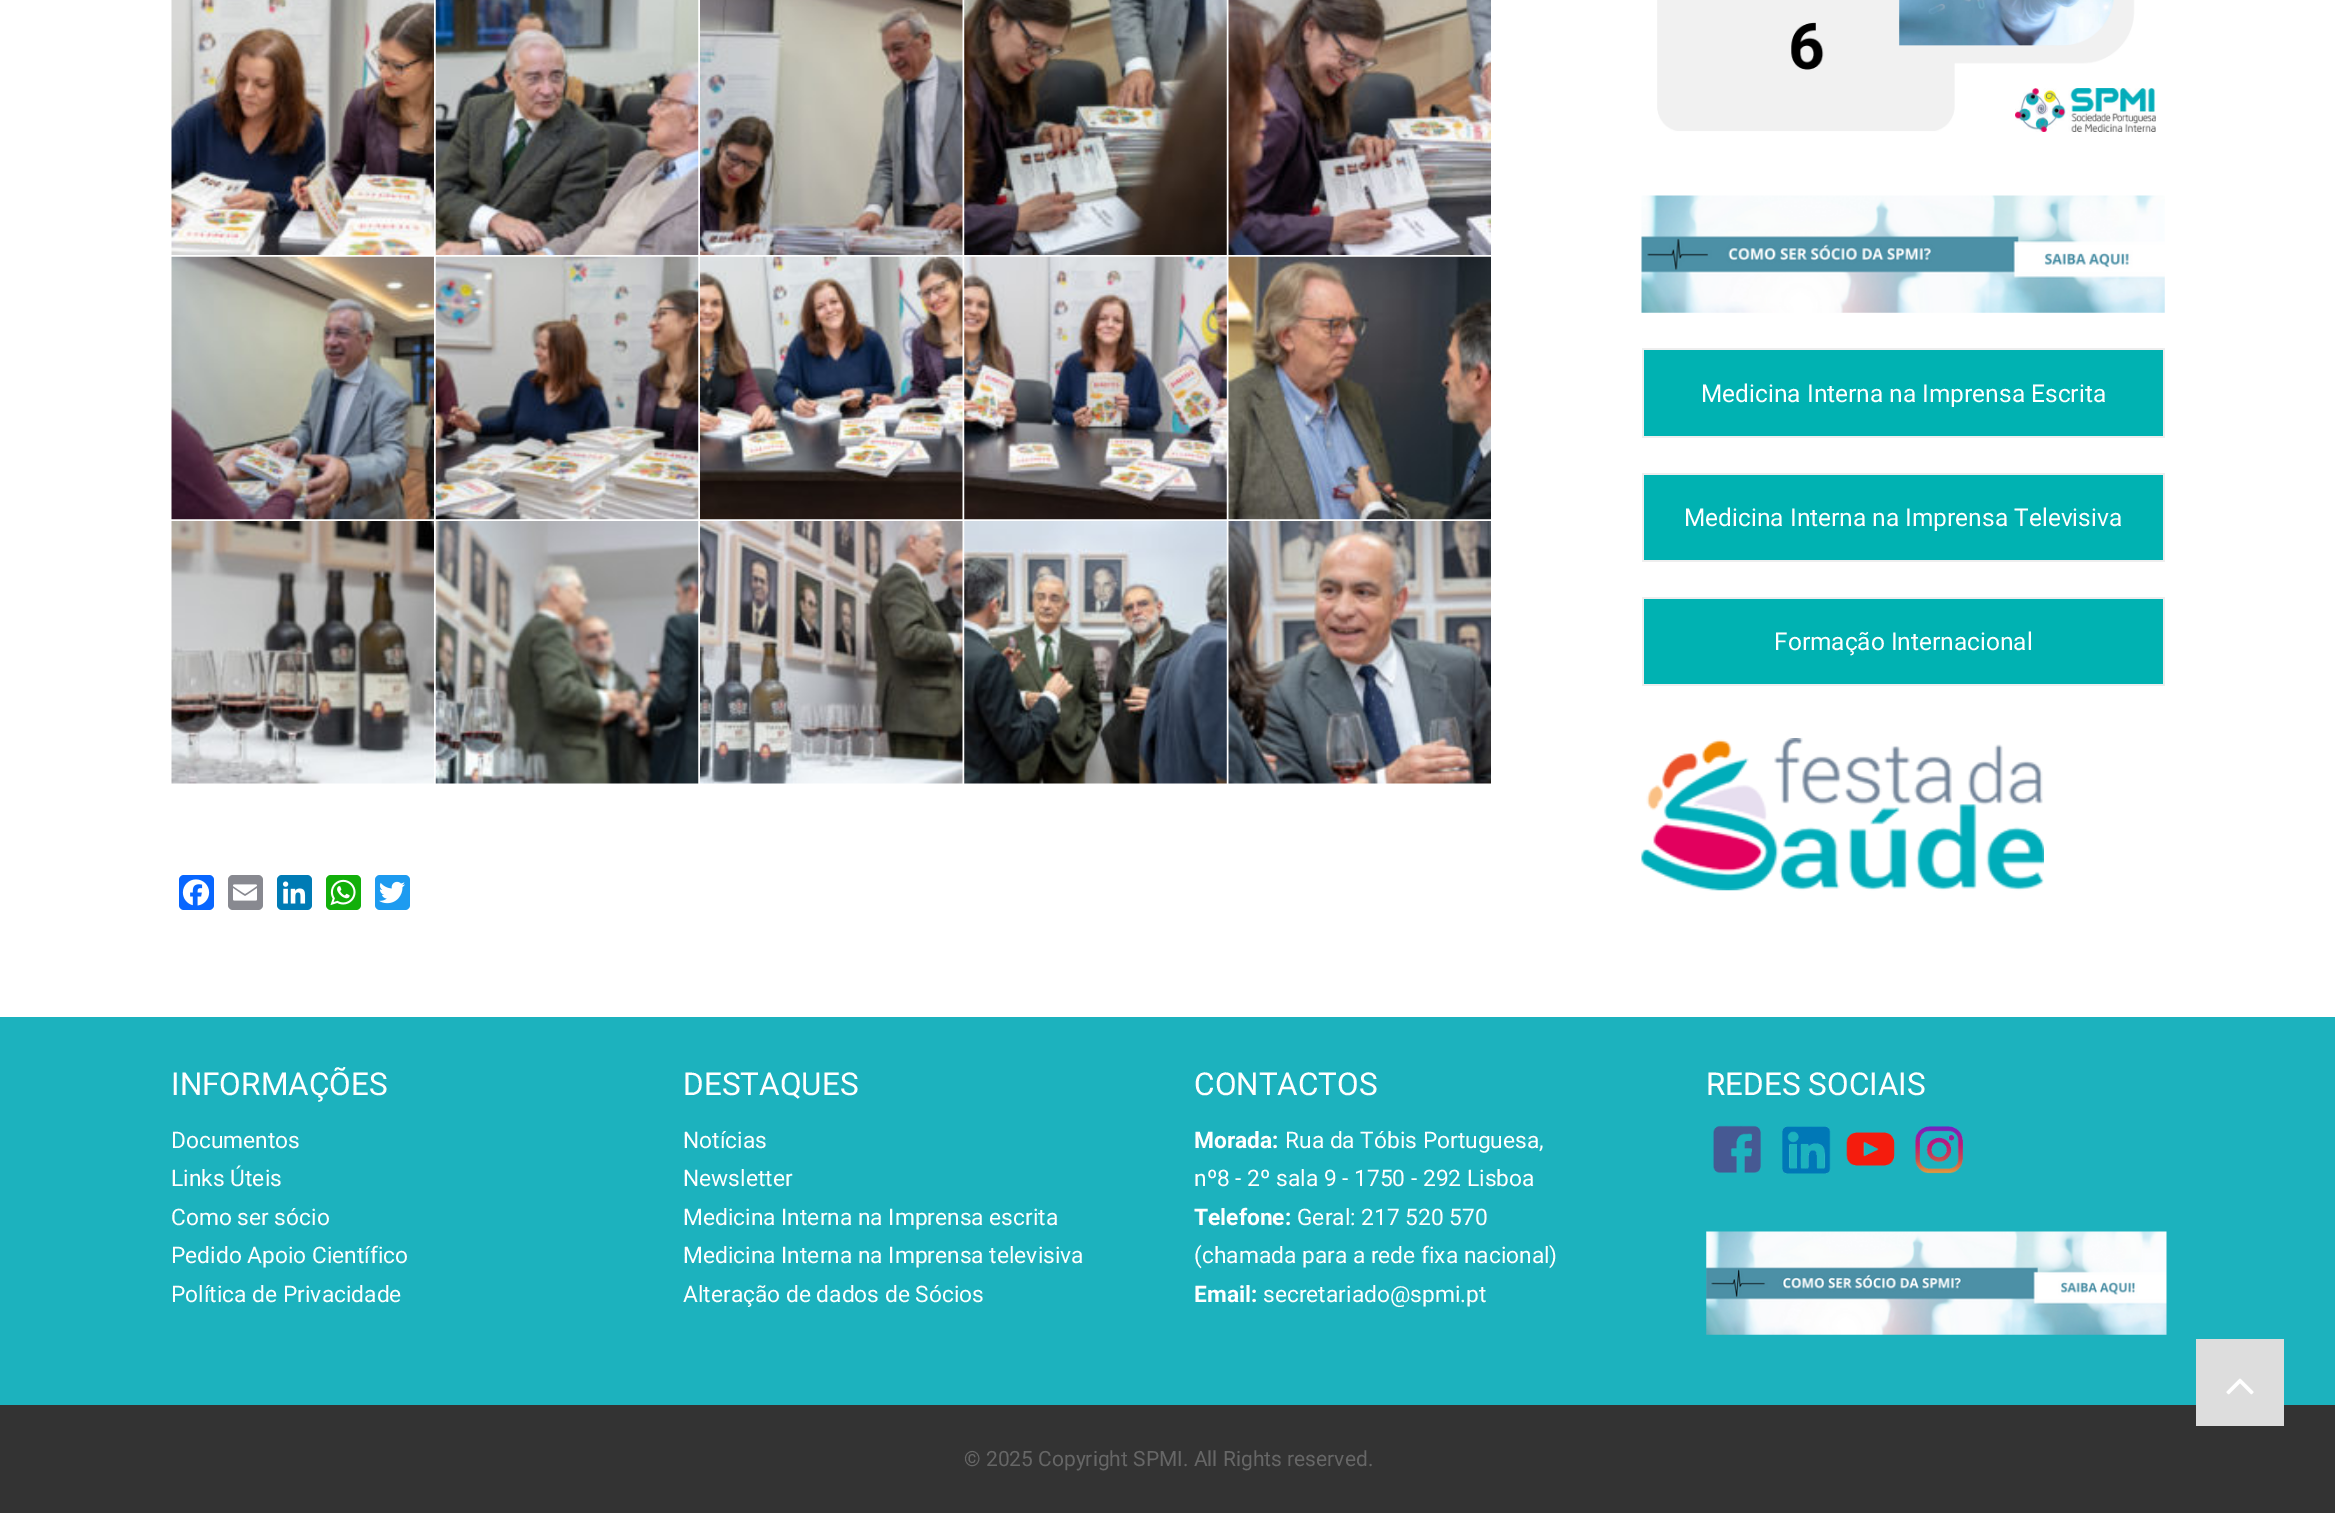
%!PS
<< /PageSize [2335 1513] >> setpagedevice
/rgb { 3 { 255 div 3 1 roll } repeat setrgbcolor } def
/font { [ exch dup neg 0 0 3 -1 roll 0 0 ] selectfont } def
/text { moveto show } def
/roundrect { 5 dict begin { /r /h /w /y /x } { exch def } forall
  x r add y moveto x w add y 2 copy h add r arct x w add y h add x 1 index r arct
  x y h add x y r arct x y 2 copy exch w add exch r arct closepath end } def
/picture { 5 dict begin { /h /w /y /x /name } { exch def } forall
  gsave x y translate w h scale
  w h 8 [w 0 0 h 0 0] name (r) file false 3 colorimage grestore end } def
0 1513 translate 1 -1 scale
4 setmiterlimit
255 255 255 rgb
0 0 2335 1513 rectfill
(img_01.rgb) 171 0 263 255 picture
(img_02.rgb) 435 0 264 255 picture
(img_03.rgb) 700 0 263 255 picture
(img_04.rgb) 964 0 263 255 picture
(img_05.rgb) 1228 0 263 255 picture
(img_06.rgb) 171 256 263 264 picture
(img_07.rgb) 435 256 264 264 picture
(img_08.rgb) 700 256 263 264 picture
(img_09.rgb) 964 256 263 264 picture
(img_10.rgb) 1228 256 263 264 picture
(img_11.rgb) 171 521 263 263 picture
(img_12.rgb) 435 521 264 263 picture
(img_13.rgb) 700 521 263 263 picture
(img_14.rgb) 964 521 263 263 picture
(img_15.rgb) 1228 521 263 263 picture
8 102 255 rgb
179 875 35 35 5 roundrect fill
(img_16.rgb) 182 879 28 27 picture
136 137 144 rgb
228 875 35 35 5 roundrect fill
(img_17.rgb) 233 884 24 17 picture
0 123 181 rgb
277 875 35 35 5 roundrect fill
(img_18.rgb) 283 881 23 23 picture
18 175 10 rgb
326 875 35 35 5 roundrect fill
(img_19.rgb) 330 879 26 27 picture
29 155 240 rgb
375 875 35 35 5 roundrect fill
(img_20.rgb) 379 881 26 23 picture
(img_21.rgb) 1657 0 499 132 picture
(img_22.rgb) 1641 195 524 118 picture
238 238 238 rgb
1642 348 523 2 rectfill
1642 348 2 90 rectfill
0 178 178 rgb
1644 350 519 86 rectfill
238 238 238 rgb
2163 348 2 90 rectfill
1642 436 523 2 rectfill
1642 473 523 2 rectfill
1642 473 2 89 rectfill
0 178 178 rgb
1644 475 519 85 rectfill
238 238 238 rgb
2163 473 2 89 rectfill
1642 560 523 2 rectfill
1642 597 523 2 rectfill
1642 597 2 89 rectfill
0 178 178 rgb
1644 599 519 85 rectfill
238 238 238 rgb
2163 597 2 89 rectfill
1642 684 523 2 rectfill
(img_23.rgb) 1641 738 403 153 picture
28 178 190 rgb
0 1017 2335 388 rectfill
(img_24.rgb) 1713 1125 48 48 picture
(img_25.rgb) 1782 1126 49 48 picture
(img_26.rgb) 1846 1132 49 34 picture
(img_27.rgb) 1915 1126 48 48 picture
(img_28.rgb) 1706 1231 461 104 picture
51 51 51 rgb
0 1405 2335 108 rectfill
221 221 221 rgb
2196 1339 88 87 rectfill
(img_29.rgb) 2226 1378 28 17 picture
/Roboto-Regular 24.5 font
255 255 255 rgb
(Medicina Interna na Imprensa Escrita) 1701 402 text
(Medicina Interna na Imprensa Televisiva) 1684 526 text
(Formação Internacional) 1774 650 text
/Roboto-Regular 31.5 font
(INFORMAÇÕES) 171 1095 text
/Roboto-Regular 22.75 font
(Documentos) 171 1148 text
(Links Úteis) 171 1186 text
(Como ser sócio) 171 1225 text
(Pedido Apoio Científico) 171 1263 text
(Política de Privacidade) 171 1302 text
/Roboto-Regular 31.5 font
(DESTAQUES) 683 1095 text
/Roboto-Regular 22.75 font
(Notícias) 683 1148 text
(Newsletter) 683 1186 text
(Medicina Interna na Imprensa escrita) 683 1225 text
(Medicina Interna na Imprensa televisiva) 683 1263 text
(Alteração de dados de Sócios) 683 1302 text
/Roboto-Regular 31.5 font
(CONTACTOS) 1194 1095 text
/Roboto-Bold 22.75 font
(Morada:) 1194 1148 text
/Roboto-Regular 22.75 font
(Rua da Tóbis Portuguesa,) 1285 1148 text
(nº8 - 2º sala 9 - 1750 - 292 Lisboa) 1194 1186 text
/Roboto-Bold 22.75 font
(Telefone:) 1194 1225 text
/Roboto-Regular 22.75 font
(Geral: 217 520 570) 1297 1225 text
(\(chamada para a rede fixa nacional\)) 1194 1263 text
/Roboto-Bold 22.75 font
(Email:) 1194 1302 text
/Roboto-Regular 22.75 font
(secretariado@spmi.pt) 1263 1302 text
/Roboto-Regular 31.5 font
(REDES SOCIAIS) 1706 1095 text
/Roboto-Regular 21 font
102 102 102 rgb
(© 2025 Copyright SPMI. All Rights reserved.) 964 1466 text
showpage
